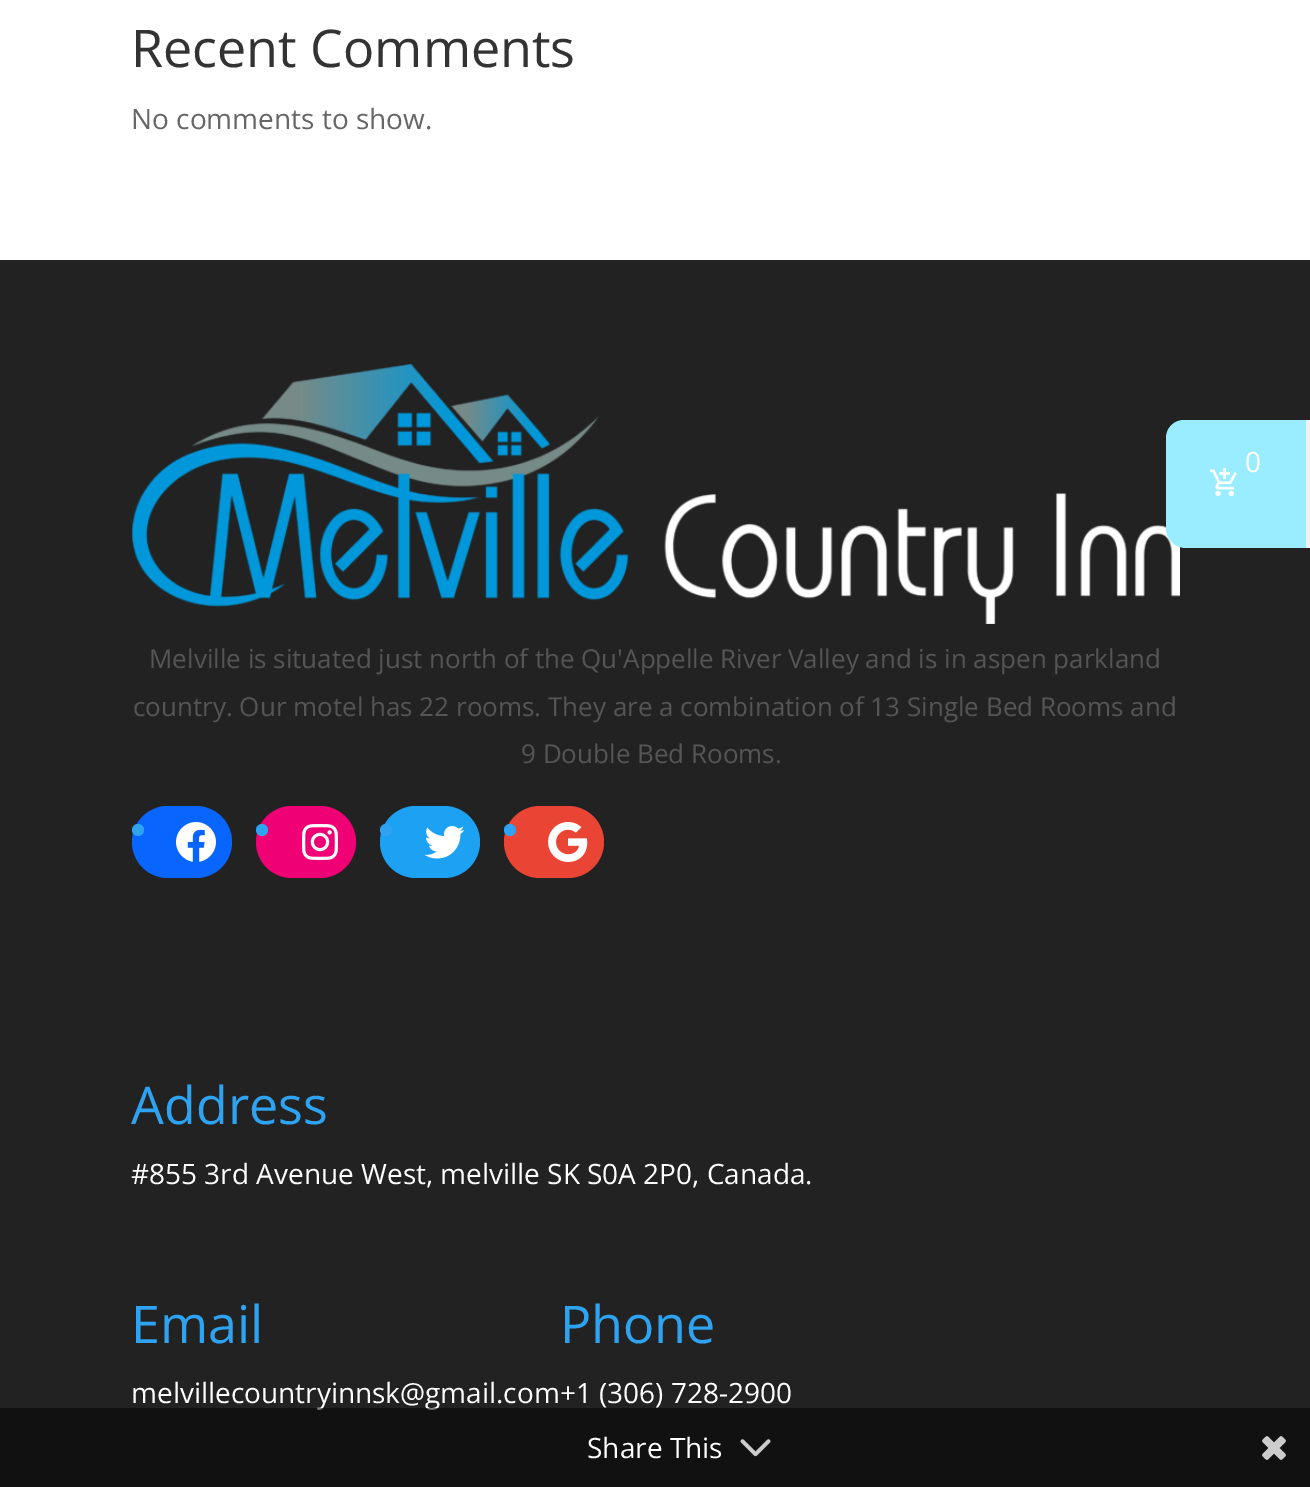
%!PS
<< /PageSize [1310 1487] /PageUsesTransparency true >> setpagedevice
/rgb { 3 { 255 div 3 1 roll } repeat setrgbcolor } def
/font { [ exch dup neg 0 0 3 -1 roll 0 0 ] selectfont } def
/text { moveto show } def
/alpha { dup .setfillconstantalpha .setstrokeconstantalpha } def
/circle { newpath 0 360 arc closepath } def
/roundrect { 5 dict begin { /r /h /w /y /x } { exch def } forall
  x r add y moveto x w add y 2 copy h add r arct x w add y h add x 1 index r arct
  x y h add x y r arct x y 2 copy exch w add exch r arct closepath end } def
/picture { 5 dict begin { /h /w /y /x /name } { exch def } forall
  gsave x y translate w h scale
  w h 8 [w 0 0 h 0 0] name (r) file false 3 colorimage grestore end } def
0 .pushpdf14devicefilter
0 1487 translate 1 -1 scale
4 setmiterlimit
255 255 255 rgb
0 0 1310 1487 rectfill
34 34 34 rgb
0 260 1310 1227 rectfill
(img_01.rgb) 132 364 1048 260 picture
8 102 255 rgb
132 806 100 72 36 roundrect fill
46 163 242 rgb
138 830 6 circle fill
(img_02.rgb) 176 822 40 40 picture
240 0 117 rgb
256 806 100 72 36 roundrect fill
46 163 242 rgb
262 830 6 circle fill
(img_03.rgb) 302 824 36 36 picture
29 161 242 rgb
380 806 100 72 36 roundrect fill
46 163 242 rgb
386 830 6 circle fill
(img_04.rgb) 424 826 41 33 picture
234 68 52 rgb
504 806 100 72 36 roundrect fill
46 163 242 rgb
510 830 6 circle fill
(img_05.rgb) 548 822 40 40 picture
153 237 255 rgb
1184 420 moveto 122 0 rlineto 0 128 rlineto -120 0 rlineto -11 0 -20 -9 -20 -20 rcurveto 0 -90 rlineto 0 -10 8 -18 18 -18 rcurveto closepath fill
(img_06.rgb) 1210 468 27 29 picture
241 241 241 rgb
1306 420 4 128 rectfill
/OpenSans-Regular 52 font
51 51 51 rgb
(Recent Comments) 131 67 text
/OpenSans-Regular 28 font
102 102 102 rgb
(No comments to show.) 131 129 text
/OpenSans-Regular 26 font
85 85 85 rgb
(Melville is situated just north of the Qu'Appelle River Valley and is in aspen parkland) 149 668 text
(country. Our motel has 22 rooms. They are a combination of 13 Single Bed Rooms and) 133 716 text
(9 Double Bed Rooms.) 521 763 text
/OpenSans-Regular 52 font
46 163 242 rgb
(Address) 131 1124 text
/OpenSans-Regular 28 font
255 255 255 rgb
(#855 3rd Avenue West, melville SK S0A 2P0, Canada.) 131 1184 text
/OpenSans-Regular 52 font
46 163 242 rgb
(Email) 131 1343 text
/OpenSans-Regular 28 font
255 255 255 rgb
(melvillecountryinnsk@gmail.com+1 \(306\) 728-2900) 131 1403 text
/OpenSans-Regular 52 font
46 163 242 rgb
(Phone) 560 1343 text
/OpenSans-Regular 28 font
255 255 255 rgb
(0) 1245 472 text
0.5 alpha
0 0 0 rgb
0 1408 1310 79 rectfill
1 alpha
255 255 255 rgb
(Share This) 587 1458 text
(img_07.rgb) 740 1439 31 18 picture
(img_08.rgb) 1262 1436 24 24 picture
.poppdf14devicefilter showpage
